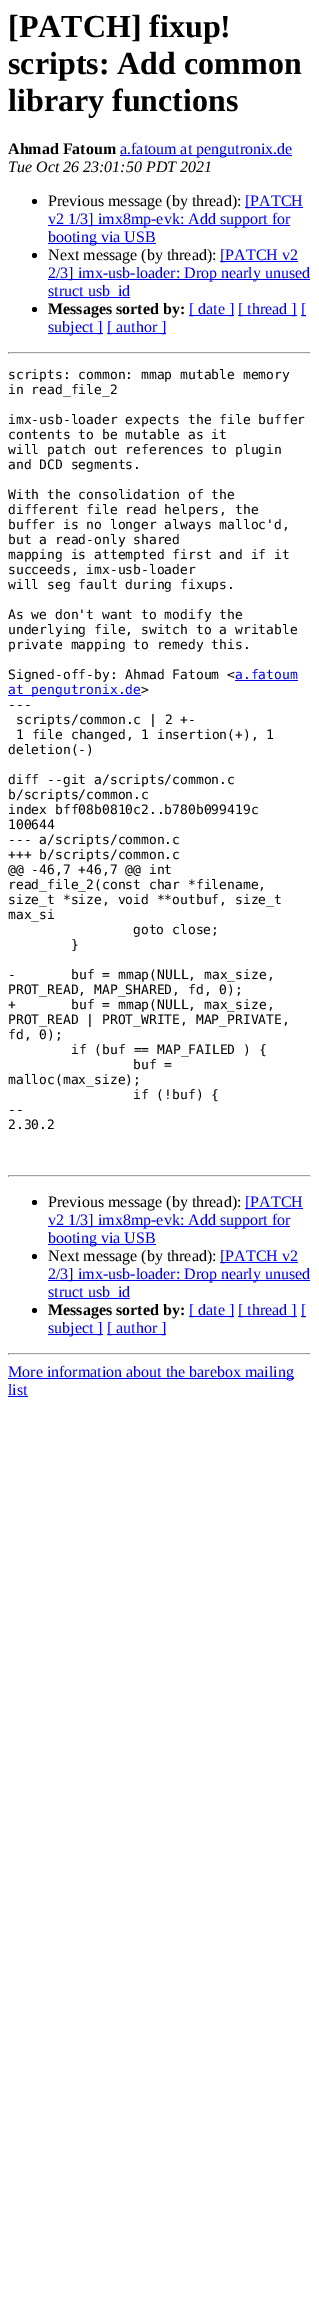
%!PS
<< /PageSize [319 2314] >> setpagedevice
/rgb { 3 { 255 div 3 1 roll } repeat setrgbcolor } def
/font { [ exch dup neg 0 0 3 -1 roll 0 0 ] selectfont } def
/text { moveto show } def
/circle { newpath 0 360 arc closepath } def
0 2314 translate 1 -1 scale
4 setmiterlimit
255 255 255 rgb
0 0 319 2314 rectfill
0 0 238 rgb
120 155 172 1 rectfill
0 0 0 rgb
34.5 201.5 2.5 circle fill
0 0 238 rgb
245 207 58 1 rectfill
48 225 242 1 rectfill
48 243 108 1 rectfill
0 0 0 rgb
34.5 255.5 2.5 circle fill
0 0 238 rgb
220 261 78 1 rectfill
48 279 262 1 rectfill
48 297 82 1 rectfill
0 0 0 rgb
34.5 309.5 2.5 circle fill
0 0 238 rgb
189 315 45 1 rectfill
238 315 59 1 rectfill
301 315 5 1 rectfill
48 333 55 1 rectfill
107 333 59 1 rectfill
159 159 159 rgb
8 352 303 1 rectfill
238 238 238 rgb
310 352 1 2 rectfill
8 353 303 1 rectfill
159 159 159 rgb
8 352 1 2 rectfill
0 0 238 rgb
235 680 63 1 rectfill
8 695 133 1 rectfill
159 159 159 rgb
8 1175 303 1 rectfill
238 238 238 rgb
310 1175 1 2 rectfill
8 1176 303 1 rectfill
159 159 159 rgb
8 1175 1 2 rectfill
0 0 0 rgb
34.5 1202.5 2.5 circle fill
0 0 238 rgb
245 1208 58 1 rectfill
48 1226 242 1 rectfill
48 1244 108 1 rectfill
0 0 0 rgb
34.5 1256.5 2.5 circle fill
0 0 238 rgb
220 1262 78 1 rectfill
48 1280 262 1 rectfill
48 1298 82 1 rectfill
0 0 0 rgb
34.5 1310.5 2.5 circle fill
0 0 238 rgb
189 1316 45 1 rectfill
238 1316 59 1 rectfill
301 1316 5 1 rectfill
48 1334 55 1 rectfill
107 1334 59 1 rectfill
159 159 159 rgb
8 1353 303 1 rectfill
238 238 238 rgb
310 1353 1 2 rectfill
8 1354 303 1 rectfill
159 159 159 rgb
8 1353 1 2 rectfill
0 0 238 rgb
8 1378 286 1 rectfill
8 1396 20 1 rectfill
/LiberationSerif-Bold 32 font
0 0 0 rgb
([PATCH] fixup!) 8 37 text
(scripts: Add common) 8 74 text
(library functions) 8 111 text
/LiberationSerif-Bold 16 font
(Ahmad Fatoum) 8 154 text
/LiberationSerif-Regular 16 font
0 0 238 rgb
(a.fatoum at pengutronix.de) 120 154 text
/LiberationSerif-Italic 16 font
0 0 0 rgb
(Tue Oct 26 23:01:50 PDT 2021) 8 172 text
/LiberationSerif-Regular 16 font
(Previous message \(by thread\):) 48 206 text
0 0 238 rgb
([PATCH) 245 206 text
(v2 1/3] imx8mp-evk: Add support for) 48 224 text
(booting via USB) 48 242 text
0 0 0 rgb
(Next message \(by thread\):) 48 260 text
0 0 238 rgb
([PATCH v2) 220 260 text
(2/3] imx-usb-loader: Drop nearly unused) 48 278 text
(struct usb_id) 48 296 text
/LiberationSerif-Bold 16 font
0 0 0 rgb
(Messages sorted by:) 48 314 text
/LiberationSerif-Regular 16 font
0 0 238 rgb
([ date ]) 189 314 text
([ thread ]) 238 314 text
([) 301 314 text
(subject ]) 48 332 text
([ author ]) 107 332 text
/DejaVuSansMono-Regular 13 font
0 0 0 rgb
(scripts: common: mmap mutable memory) 8 379 text
(in read_file_2) 8 394 text
(imx-usb-loader expects the file buffer) 8 424 text
(contents to be mutable as it) 8 439 text
(will patch out references to plugin) 8 454 text
(and DCD segments.) 8 469 text
(With the consolidation of the) 8 499 text
(different file read helpers, the) 8 514 text
(buffer is no longer always malloc'd,) 8 529 text
(but a read-only shared) 8 544 text
(mapping is attempted first and if it) 8 559 text
(succeeds, imx-usb-loader) 8 574 text
(will seg fault during fixups.) 8 589 text
(As we don't want to modify the) 8 619 text
(underlying file, switch to a writable) 8 634 text
(private mapping to remedy this.) 8 649 text
(Signed-off-by: Ahmad Fatoum <) 8 679 text
0 0 238 rgb
(a.fatoum) 235 679 text
(at pengutronix.de) 8 694 text
0 0 0 rgb
(>) 141 694 text
(---) 8 709 text
(scripts/common.c | 2 +-) 16 724 text
(1 file changed, 1 insertion\(+\), 1) 16 739 text
(deletion\(-\)) 8 754 text
(diff --git a/scripts/common.c) 8 784 text
(b/scripts/common.c) 8 799 text
(index bff08b0810c2..b780b099419c) 8 814 text
(100644) 8 829 text
(--- a/scripts/common.c) 8 844 text
(+++ b/scripts/common.c) 8 859 text
(@@ -46,7 +46,7 @@ int) 8 874 text
(read_file_2\(const char *filename,) 8 889 text
(size_t *size, void **outbuf, size_t) 8 904 text
(max_si) 8 919 text
(goto close;) 133 934 text
(}) 71 949 text
(-) 8 979 text
(buf = mmap\(NULL, max_size,) 71 979 text
(PROT_READ, MAP_SHARED, fd, 0\);) 8 994 text
(+) 8 1009 text
(buf = mmap\(NULL, max_size,) 71 1009 text
(PROT_READ | PROT_WRITE, MAP_PRIVATE,) 8 1024 text
(fd, 0\);) 8 1039 text
(if \(buf == MAP_FAILED \) {) 71 1054 text
(buf =) 133 1069 text
(malloc\(max_size\);) 8 1084 text
(if \(!buf\) {) 133 1099 text
(--) 8 1114 text
(2.30.2) 8 1129 text
/LiberationSerif-Regular 16 font
(Previous message \(by thread\):) 48 1207 text
0 0 238 rgb
([PATCH) 245 1207 text
(v2 1/3] imx8mp-evk: Add support for) 48 1225 text
(booting via USB) 48 1243 text
0 0 0 rgb
(Next message \(by thread\):) 48 1261 text
0 0 238 rgb
([PATCH v2) 220 1261 text
(2/3] imx-usb-loader: Drop nearly unused) 48 1279 text
(struct usb_id) 48 1297 text
/LiberationSerif-Bold 16 font
0 0 0 rgb
(Messages sorted by:) 48 1315 text
/LiberationSerif-Regular 16 font
0 0 238 rgb
([ date ]) 189 1315 text
([ thread ]) 238 1315 text
([) 301 1315 text
(subject ]) 48 1333 text
([ author ]) 107 1333 text
(More information about the barebox mailing) 8 1377 text
(list) 8 1395 text
showpage
